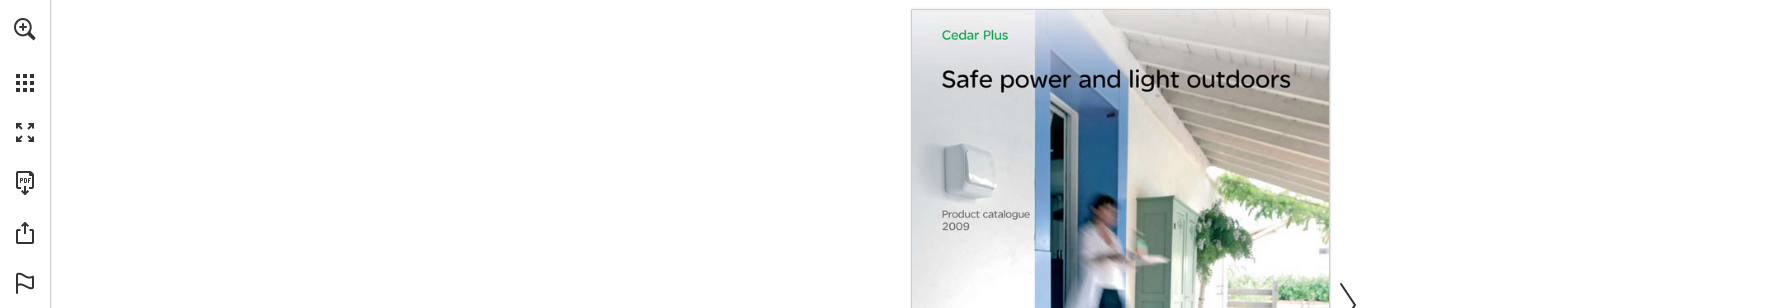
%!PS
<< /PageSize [1773 308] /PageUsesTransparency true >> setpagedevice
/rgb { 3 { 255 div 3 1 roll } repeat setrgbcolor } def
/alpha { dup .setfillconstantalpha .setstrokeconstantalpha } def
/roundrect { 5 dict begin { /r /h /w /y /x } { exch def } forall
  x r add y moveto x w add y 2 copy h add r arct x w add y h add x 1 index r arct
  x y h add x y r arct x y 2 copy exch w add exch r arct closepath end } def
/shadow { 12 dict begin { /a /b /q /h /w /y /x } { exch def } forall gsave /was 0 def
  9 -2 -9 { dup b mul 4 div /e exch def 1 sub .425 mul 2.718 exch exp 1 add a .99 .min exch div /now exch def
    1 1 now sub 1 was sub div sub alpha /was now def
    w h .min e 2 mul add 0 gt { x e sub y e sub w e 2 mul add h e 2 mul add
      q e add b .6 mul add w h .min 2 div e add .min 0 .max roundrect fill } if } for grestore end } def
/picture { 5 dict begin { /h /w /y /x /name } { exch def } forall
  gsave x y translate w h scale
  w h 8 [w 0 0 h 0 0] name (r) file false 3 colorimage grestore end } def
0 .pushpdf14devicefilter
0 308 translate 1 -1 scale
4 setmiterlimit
255 255 255 rgb
0 0 1773 308 rectfill
0 0 0 rgb
1 0 50 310 0 0.5 0.2 shadow
255 255 255 rgb
0 0 50 308 rectfill
(img_01.rgb) 14 18 22 23 picture
(img_02.rgb) 16 74 18 18 picture
(img_03.rgb) 16 123 18 19 picture
(img_04.rgb) 16 171 18 24 picture
(img_05.rgb) 16 222 18 22 picture
(img_06.rgb) 16 272 18 22 picture
18 18 18 rgb
910 8 421 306 3 1 0.05 shadow
255 255 255 rgb
911.5 9.5 418 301 1.5 roundrect gsave fill grestore
204 204 204 rgb
stroke
(img_07.rgb) 912 10 417 298 picture
(img_08.rgb) 1340 283 17 25 picture
.poppdf14devicefilter showpage
